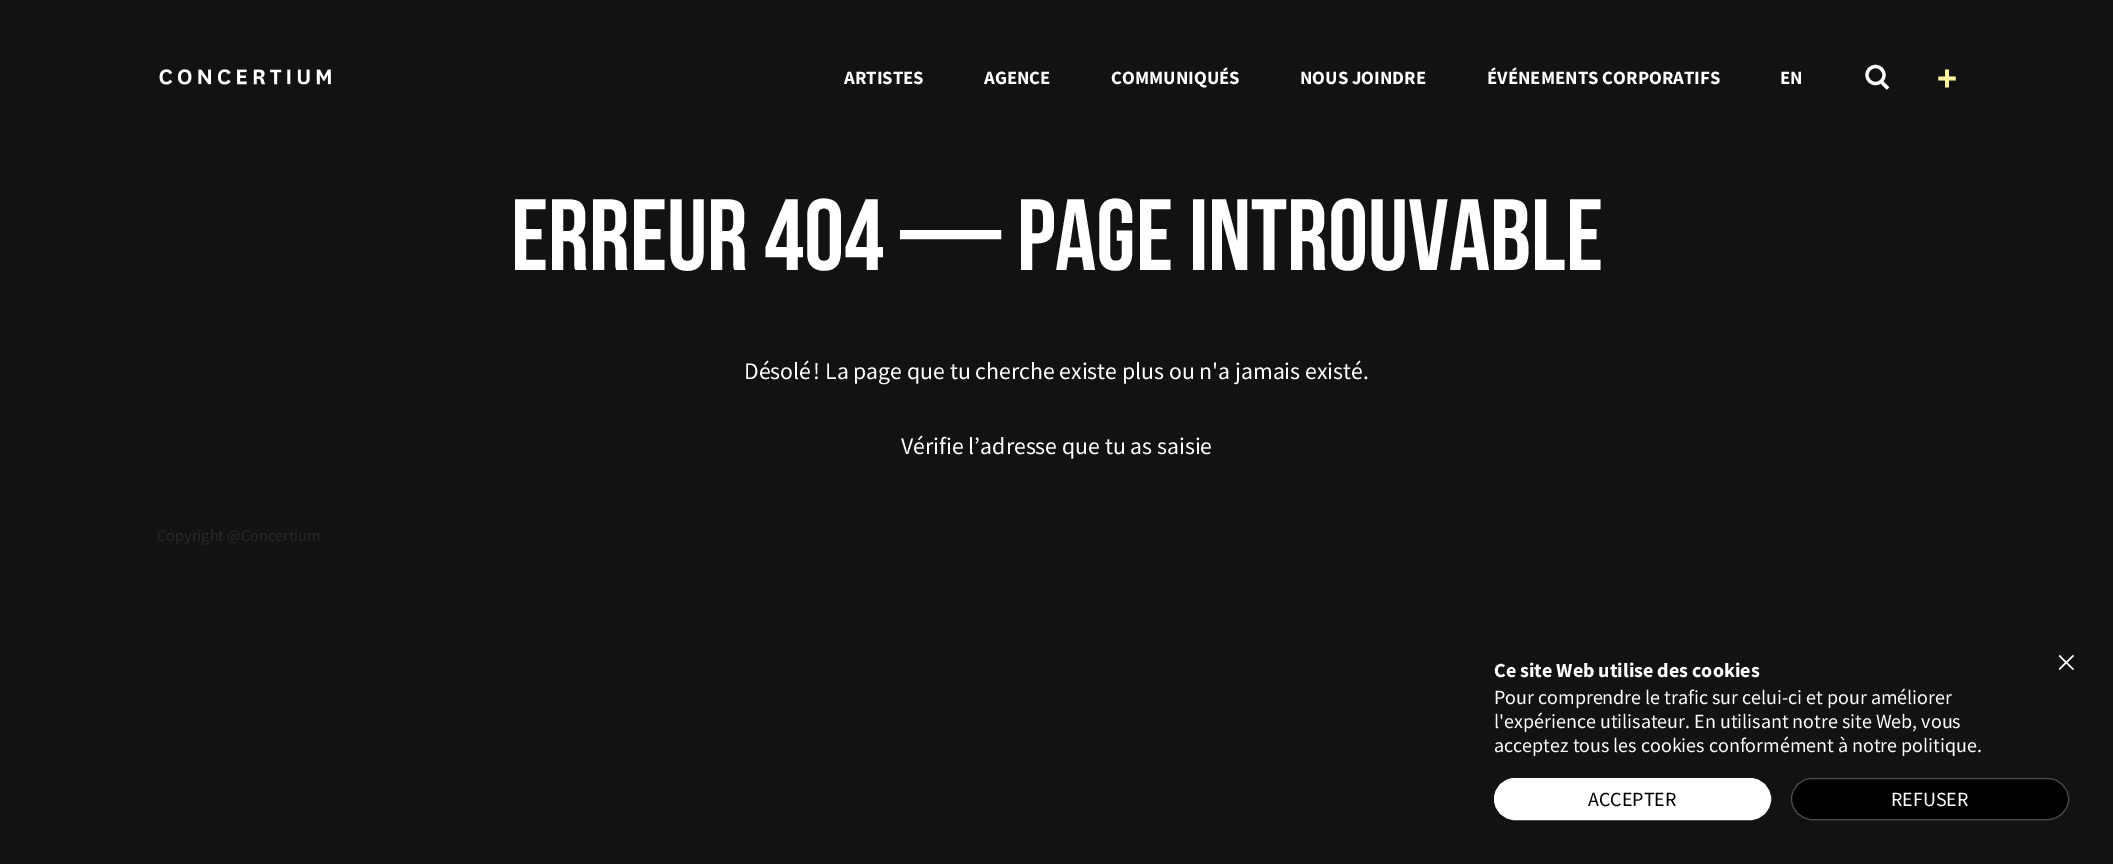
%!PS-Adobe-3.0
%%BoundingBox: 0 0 2113 864
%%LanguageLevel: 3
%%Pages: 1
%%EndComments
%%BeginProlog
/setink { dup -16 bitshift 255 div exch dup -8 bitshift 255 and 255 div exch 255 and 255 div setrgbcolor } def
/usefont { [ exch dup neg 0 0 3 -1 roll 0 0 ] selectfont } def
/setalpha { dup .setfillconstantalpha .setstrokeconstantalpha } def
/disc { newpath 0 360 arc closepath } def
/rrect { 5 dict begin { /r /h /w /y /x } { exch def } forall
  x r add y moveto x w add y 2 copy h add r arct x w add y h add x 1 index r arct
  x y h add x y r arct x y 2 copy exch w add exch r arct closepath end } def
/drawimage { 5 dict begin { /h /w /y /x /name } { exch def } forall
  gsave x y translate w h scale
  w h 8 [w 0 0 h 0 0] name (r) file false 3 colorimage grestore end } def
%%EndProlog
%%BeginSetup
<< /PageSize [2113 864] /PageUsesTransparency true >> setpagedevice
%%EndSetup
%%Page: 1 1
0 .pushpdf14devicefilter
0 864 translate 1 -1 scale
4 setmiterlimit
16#121212 setink
0 0 2113 864 rectfill
(img1.raw) 159 69 172 16 drawimage
/SourceSansPro-Bold 18.75 usefont
16#FFFFFF setink
[
    [(ARTISTES) 844 84]
    [(AGENCE) 984 84]
    [(COMMUNIQUÉS) 1111 84]
    [(NOUS JOINDRE) 1300 84]
    [(ÉVÉNEMENTS CORPORATIFS) 1487 84]
    [(EN) 1780 84]
] { aload pop moveto show } forall
3.2 setlinewidth
1875.5 75 8.5 disc stroke
1881 81.5 moveto 1888 88.5 lineto stroke
/SourceSansPro-Bold 38 usefont
16#FEF49D setink
1937 91 moveto (+) show
/BebasNeue-Bold 101.25 usefont
16#FFFFFF setink
511 270 moveto (ERREUR 404 — PAGE INTROUVABLE) show
/SourceSansPro-Regular 23.75 usefont
744 379 moveto (Désolé ! La page que tu cherche existe plus ou n'a jamais existé.) show
901 454 moveto (Vérifie l’adresse que tu as saisie) show
/SourceSansPro-Regular 16.25 usefont
16#282828 setink
157 541 moveto (Copyright @Concertium) show
/SourceSansPro-Bold 20 usefont
16#FFFFFF setink
1494 677 moveto (Ce site Web utilise des cookies) show
/SourceSansPro-Regular 20 usefont
[
    [(Pour comprendre le trafic sur celui-ci et pour améliorer) 1494 704]
    [(l'expérience utilisateur. En utilisant notre site Web, vous) 1494 728]
    [(acceptez tous les cookies conformément à notre politique.) 1494 752]
] { aload pop moveto show } forall
gsave
2059 655 15 15 rectclip
1.4 setlinewidth
2059 669.5 moveto 2073.5 655.5 lineto 2073.5 669.5 moveto 2059 655.5 lineto stroke
grestore
1494.5 778.5 276 41 20.5 rrect gsave fill grestore
1 setlinewidth
stroke
16#000000 setink
1588 806 moveto (ACCEPTER) show
1791 778 278 42 21 rrect fill
0.3 setalpha
16#FFFFFF setink
1791.5 778.5 277 41 20.5 rrect stroke
1 setalpha
1891 806 moveto (REFUSER) show
.poppdf14devicefilter showpage
%%EOF
